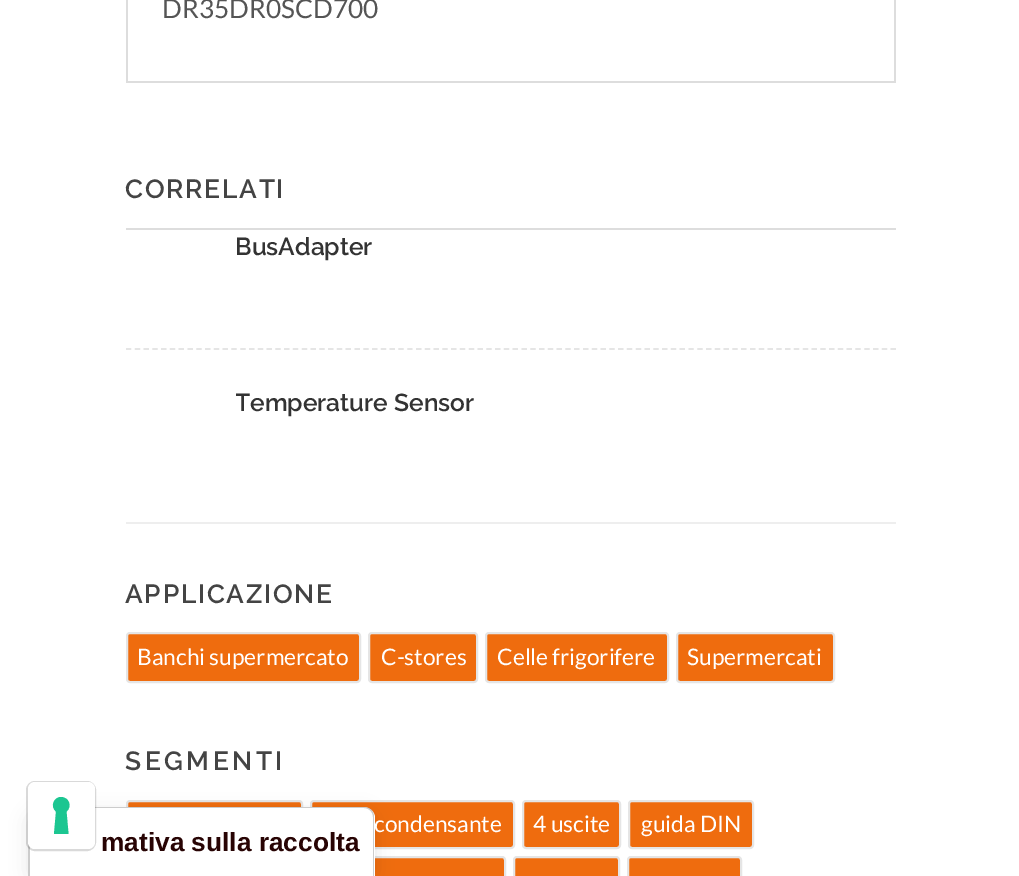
%!PS-Adobe-3.0
%%BoundingBox: 0 0 1019 876
%%LanguageLevel: 3
%%Pages: 1
%%EndComments
%%BeginProlog
/setink { dup -16 bitshift 255 div exch dup -8 bitshift 255 and 255 div exch 255 and 255 div setrgbcolor } def
/usefont { [ exch dup neg 0 0 3 -1 roll 0 0 ] selectfont } def
/setalpha { dup .setfillconstantalpha .setstrokeconstantalpha } def
/rrect { 5 dict begin { /r /h /w /y /x } { exch def } forall
  x r add y moveto x w add y 2 copy h add r arct x w add y h add x 1 index r arct
  x y h add x y r arct x y 2 copy exch w add exch r arct closepath end } def
/softshadow { 12 dict begin { /a /b /q /h /w /y /x } { exch def } forall gsave /was 0 def
  9 -2 -9 { dup b mul 4 div /e exch def 1 sub .425 mul 2.718 exch exp 1 add a .99 .min exch div /now exch def
    1 1 now sub 1 was sub div sub setalpha /was now def
    w h .min e 2 mul add 0 gt { x e sub y e sub w e 2 mul add h e 2 mul add
      q e add b .6 mul add w h .min 2 div e add .min 0 .max rrect fill } if } for grestore end } def
%%EndProlog
%%BeginSetup
<< /PageSize [1019 876] /PageUsesTransparency true >> setpagedevice
%%EndSetup
%%Page: 1 1
0 .pushpdf14devicefilter
0 876 translate 1 -1 scale
4 setmiterlimit
16#FFFFFF setink
0 0 1019 876 rectfill
16#EF6C0E setink
127 801 175 47 3 rrect gsave fill grestore
16#E5E5E5 setink
2 setlinewidth
stroke
16#EF6C0E setink
311 801 203 47 3 rrect gsave fill grestore
16#E5E5E5 setink
stroke
16#EF6C0E setink
309 857 196 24 3 rrect gsave fill grestore
16#E5E5E5 setink
stroke
16#000000 setink
28 812 347 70 11 9 0.1 softshadow
16#FFFFFF setink
39 807 moveto 364 807 lineto 370 807 375 812 375 818 curveto 375 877 lineto 28 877 lineto 28 818 lineto 28 812 33 807 39 807 curveto closepath fill
0.2 setalpha
16#000000 setink
38 807 moveto 364 807 lineto 370 807 374 811 374 817 curveto 374 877 lineto 28 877 lineto 28 817 lineto 28 811 33 807 38 807 curveto closepath 38 808 moveto 364 808 lineto 369 808 373 812 373 817 curveto 373 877 lineto 30 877 lineto 30 817 lineto 30 812 34 808 38 808 curveto closepath eofill
0.15 setalpha
27 782 68 68 8 rrect stroke
1 setalpha
16#FFFFFF setink
28 782 67 67 7 rrect fill
16#1CC691 setink
61 797 moveto 69 797 72.5 806.5 66.5 811.5 curveto 68.5 834 lineto 54 834 lineto 56 811.5 lineto 50 806.5 53.5 797 61 797 curveto closepath eofill
[
    [894 0 2 82 16#DDDDDD]
    [126 81 770 2 16#DDDDDD]
    [126 0 2 82 16#DDDDDD]
] { aload pop setink rectfill } forall
/Lato-Regular 26.25 usefont
16#555555 setink
162 18 moveto (DR35DR0SCD700) show
/Raleway-SemiBold 26.25 usefont
16#444444 setink
125 198 moveto 1.75 0 (CORRELATI) ashow
16#DDDDDD setink
126 228 770 2 rectfill
/Raleway-SemiBold 24.5 usefont
16#333333 setink
235 255 moveto (BusAdapter) show
16#E5E5E5 setink
1.8 setlinewidth
[5.25 3.54] 0 setdash
126 349 moveto 896 349 lineto stroke
gsave
236 385 660 54 rectclip
16#333333 setink
235 411 moveto (Temperature Sensor) show
grestore
16#EEEEEE setink
126 522 770 2 rectfill
/Raleway-SemiBold 26.25 usefont
16#444444 setink
125 603 moveto 1.75 0 (APPLICAZIONE) ashow
16#EF6C0E setink
127 633 233 49 3 rrect gsave fill grestore
16#E5E5E5 setink
2 setlinewidth
[] 0 setdash
stroke
/Lato-Regular 22.75 usefont
16#FFFFFF setink
137 665 moveto (Banchi supermercato) show
16#EF6C0E setink
369 633 108 49 3 rrect gsave fill grestore
16#E5E5E5 setink
stroke
16#FFFFFF setink
381 665 moveto (C-stores) show
16#EF6C0E setink
486 633 182 49 3 rrect gsave fill grestore
16#E5E5E5 setink
stroke
16#FFFFFF setink
497 665 moveto (Celle frigorifere) show
16#EF6C0E setink
677 633 157 49 3 rrect gsave fill grestore
16#E5E5E5 setink
stroke
16#FFFFFF setink
687 665 moveto (Supermercati) show
/Raleway-SemiBold 26.25 usefont
16#444444 setink
125 770 moveto 3.5 0 (SEGMENTI) ashow
/Lato-Regular 22.75 usefont
16#FFFFFF setink
374 832 moveto (condensante) show
16#EF6C0E setink
523 801 97 47 3 rrect gsave fill grestore
16#E5E5E5 setink
stroke
16#FFFFFF setink
533 832 moveto (4 uscite) show
16#EF6C0E setink
629 801 124 47 3 rrect gsave fill grestore
16#E5E5E5 setink
stroke
16#FFFFFF setink
641 832 moveto (guida DIN) show
16#EF6C0E setink
514 857 105 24 3 rrect gsave fill grestore
16#E5E5E5 setink
stroke
16#EF6C0E setink
628 857 113 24 3 rrect gsave fill grestore
16#E5E5E5 setink
stroke
/LiberationSans-Bold 26.25 usefont
16#280404 setink
101 851 moveto (mativa sulla raccolta) show
.poppdf14devicefilter showpage
%%EOF
